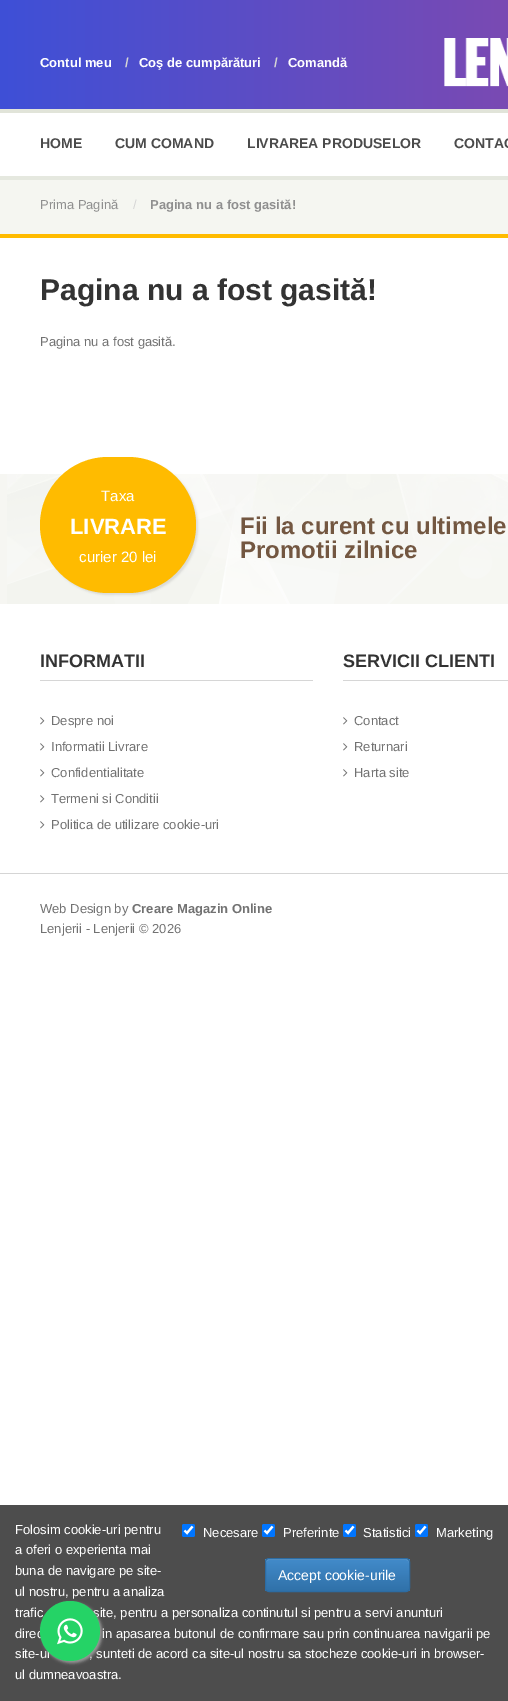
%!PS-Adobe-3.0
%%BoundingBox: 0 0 508 1701
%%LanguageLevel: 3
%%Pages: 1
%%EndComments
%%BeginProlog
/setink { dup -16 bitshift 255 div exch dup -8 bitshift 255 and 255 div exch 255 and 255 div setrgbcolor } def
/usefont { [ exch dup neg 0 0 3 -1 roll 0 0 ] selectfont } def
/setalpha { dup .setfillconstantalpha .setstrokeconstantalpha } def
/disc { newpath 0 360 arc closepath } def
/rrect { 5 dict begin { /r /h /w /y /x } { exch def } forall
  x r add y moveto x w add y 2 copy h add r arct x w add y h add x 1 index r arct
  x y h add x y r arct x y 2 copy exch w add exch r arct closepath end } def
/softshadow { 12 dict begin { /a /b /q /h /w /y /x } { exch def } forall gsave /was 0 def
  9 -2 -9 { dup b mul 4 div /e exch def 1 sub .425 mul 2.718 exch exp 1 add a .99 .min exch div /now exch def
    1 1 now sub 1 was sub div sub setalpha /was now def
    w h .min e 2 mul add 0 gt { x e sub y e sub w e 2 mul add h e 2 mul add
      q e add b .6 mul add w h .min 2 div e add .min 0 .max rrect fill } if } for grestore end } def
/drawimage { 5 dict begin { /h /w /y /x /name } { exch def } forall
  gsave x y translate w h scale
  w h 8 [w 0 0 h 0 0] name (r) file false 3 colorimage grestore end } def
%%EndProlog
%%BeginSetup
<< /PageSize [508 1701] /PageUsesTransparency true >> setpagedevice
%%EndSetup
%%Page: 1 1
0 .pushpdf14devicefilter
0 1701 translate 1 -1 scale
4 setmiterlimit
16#FFFFFF setink
0 0 508 1701 rectfill
gsave 0 0 moveto 508 0 lineto 508 109 lineto 0 109 lineto closepath clip newpath
<< /ShadingType 2 /ColorSpace /DeviceRGB /Coords [0 0 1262 0] /Extend [true true] /Function << /FunctionType 2 /Domain [0 1] /C0 [0.243 0.314 0.843] /C1 [0.831 0.251 0.49] /N 1 >> >> shfill grestore
/LiberationSans-Bold 13 usefont
40 67 moveto (Contul meu) show
16#D5D5D5 setink
125 67 moveto (/) show
16#FFFFFF setink
139 67 moveto (Coş de cumpărături) show
16#D5D5D5 setink
274 67 moveto (/) show
16#FFFFFF setink
288 67 moveto (Comandă) show
(img1.raw) 444 38 64 49 drawimage
16#E1E4D9 setink
0 109 508 4 rectfill
16#E5E8DF setink
0 176 508 4 rectfill
/LiberationSans-Bold 14 usefont
16#4B4B4B setink
[
    [(HOME) 40 148]
    [(CUM COMAND) 115 148]
    [(LIVRAREA PRODUSELOR) 247 148]
    [(CONTAC) 454 148]
] { aload pop moveto show } forall
16#F5F6F1 setink
0 180 508 54 rectfill
16#FFBB00 setink
0 234 508 4 rectfill
/LiberationSans-Regular 13 usefont
16#8F8F8F setink
40 209 moveto (Prima Pagină) show
16#D5D5D5 setink
133 209 moveto (/) show
/LiberationSans-Bold 13 usefont
16#8F8F8F setink
150 209 moveto (Pagina nu a fost gasită!) show
/LiberationSans-Bold 30 usefont
16#333333 setink
40 300 moveto (Pagina nu a fost gasită!) show
/LiberationSans-Regular 13 usefont
16#727272 setink
40 346 moveto (Pagina nu a fost gasită.) show
16#F6F6F2 setink
0 474 7 130 rectfill
(img2.raw) 7 474 501 130 drawimage
16#000000 setink
42 459 156 136 68 1 0.1 softshadow
16#FFBB00 setink
40 457 156 136 68 rrect fill
/LiberationSans-Regular 15 usefont
16#FFFFFF setink
101 501 moveto (Taxa) show
/LiberationSans-Bold 22 usefont
70 534 moveto (LIVRARE) show
/LiberationSans-Regular 15 usefont
79 562 moveto (curier 20 lei) show
/LiberationSans-Bold 24 usefont
16#735741 setink
240 534 moveto (Fii la curent cu ultimele) show
240 558 moveto (Promotii zilnice) show
16#D6D6D6 setink
40 680 273 1 rectfill
/LiberationSans-Bold 18 usefont
16#333333 setink
40 667 moveto (INFORMATII) show
(img3.raw) 40 717 5 8 drawimage
/LiberationSans-Regular 13 usefont
16#727272 setink
51 725 moveto (Despre noi) show
(img3.raw) 40 743 5 8 drawimage
51 751 moveto (Informatii Livrare) show
(img3.raw) 40 769 5 8 drawimage
51 777 moveto (Confidentialitate) show
(img3.raw) 40 795 5 8 drawimage
51 803 moveto (Termeni si Conditii) show
(img3.raw) 40 821 5 8 drawimage
51 829 moveto (Politica de utilizare cookie-uri) show
16#D6D6D6 setink
343 680 165 1 rectfill
/LiberationSans-Bold 18 usefont
16#333333 setink
343 667 moveto (SERVICII CLIENTI) show
(img3.raw) 343 717 5 8 drawimage
/LiberationSans-Regular 13 usefont
16#727272 setink
354 725 moveto (Contact) show
(img3.raw) 343 743 5 8 drawimage
354 751 moveto (Returnari) show
(img3.raw) 343 769 5 8 drawimage
354 777 moveto (Harta site) show
16#D5D5D5 setink
0 873 508 1 rectfill
16#727272 setink
40 913 moveto (Web Design by) show
/LiberationSans-Bold 13 usefont
132 913 moveto (Creare Magazin Online) show
/LiberationSans-Regular 13 usefont
40 933 moveto (Lenjerii - Lenjerii © 2026) show
16#4D4D4D setink
0 1505 508 196 rectfill
16#FFFFFF setink
15 1534 moveto (Folosim cookie-uri pentru) show
16#0075FF setink
182 1524 13 13 2 rrect fill
16#FFFFFF setink
2.1 setlinewidth
184.5 1530.5 moveto 187 1533 lineto 192.5 1526.5 lineto stroke
203 1537 moveto (Necesare) show
16#0075FF setink
262 1524 13 13 2 rrect fill
16#FFFFFF setink
264.5 1530.5 moveto 267 1533 lineto 272.5 1526.5 lineto stroke
283 1537 moveto (Preferinte) show
16#0075FF setink
343 1524 13 13 2 rrect fill
16#FFFFFF setink
345.5 1530.5 moveto 348 1533 lineto 353.5 1526.5 lineto stroke
363 1537 moveto (Statistici) show
16#0075FF setink
415 1524 13 13 2 rrect fill
16#FFFFFF setink
417.5 1530.5 moveto 420 1533 lineto 425.5 1526.5 lineto stroke
436 1537 moveto (Marketing) show
gsave
265 1558 145 34 4 rrect clip newpath
gsave 265 1559 moveto 410 1559 lineto 410 1591 lineto 265 1591 lineto closepath clip newpath
<< /ShadingType 2 /ColorSpace /DeviceRGB /Coords [338 1559 338 1591] /Extend [true true] /Function << /FunctionType 2 /Domain [0 1] /C0 [0.259 0.545 0.792] /C1 [0.188 0.443 0.663] /N 1 >> >> shfill grestore
grestore
16#5E9CD1 setink
269 1560 moveto 406 1560 lineto 408 1560 409 1561 409 1563 curveto 409 1562 lineto 409 1560 408 1559 406 1559 curveto 269 1559 lineto 267 1559 266 1560 266 1562 curveto 266 1563 lineto 266 1561 267 1560 269 1560 curveto closepath fill
16#2D6CA2 setink
1 setlinewidth
265.5 1558.5 144 33 3.5 rrect stroke
/LiberationSans-Regular 14 usefont
16#FFFFFF setink
278 1580 moveto (Accept cookie-urile) show
/LiberationSans-Regular 13 usefont
[
    [(a oferi o experienta mai) 15 1554]
    [(buna de navigare pe site-) 15 1575]
    [(ul nostru, pentru a analiza) 15 1596]
    [(trafic) 15 1617]
    [(site, pentru a personaliza continutul si pentru a servi anunturi) 93 1617]
    [(direc) 15 1638]
    [(in apasarea butonul de confirmare sau prin continuarea navigarii pe) 102 1638]
    [(site-ul) 15 1658]
    [(, sunteti de acord ca site-ul nostru sa stocheze cookie-uri in browser-) 89 1658]
    [(ul dumneavoastra.) 15 1679]
] { aload pop moveto show } forall
16#999999 setink
42 1603 60 60 30 1.5 1 softshadow
16#25D366 setink
70 1631 30 disc fill
(img4.raw) 57 1618 26 27 drawimage
.poppdf14devicefilter showpage
%%EOF
